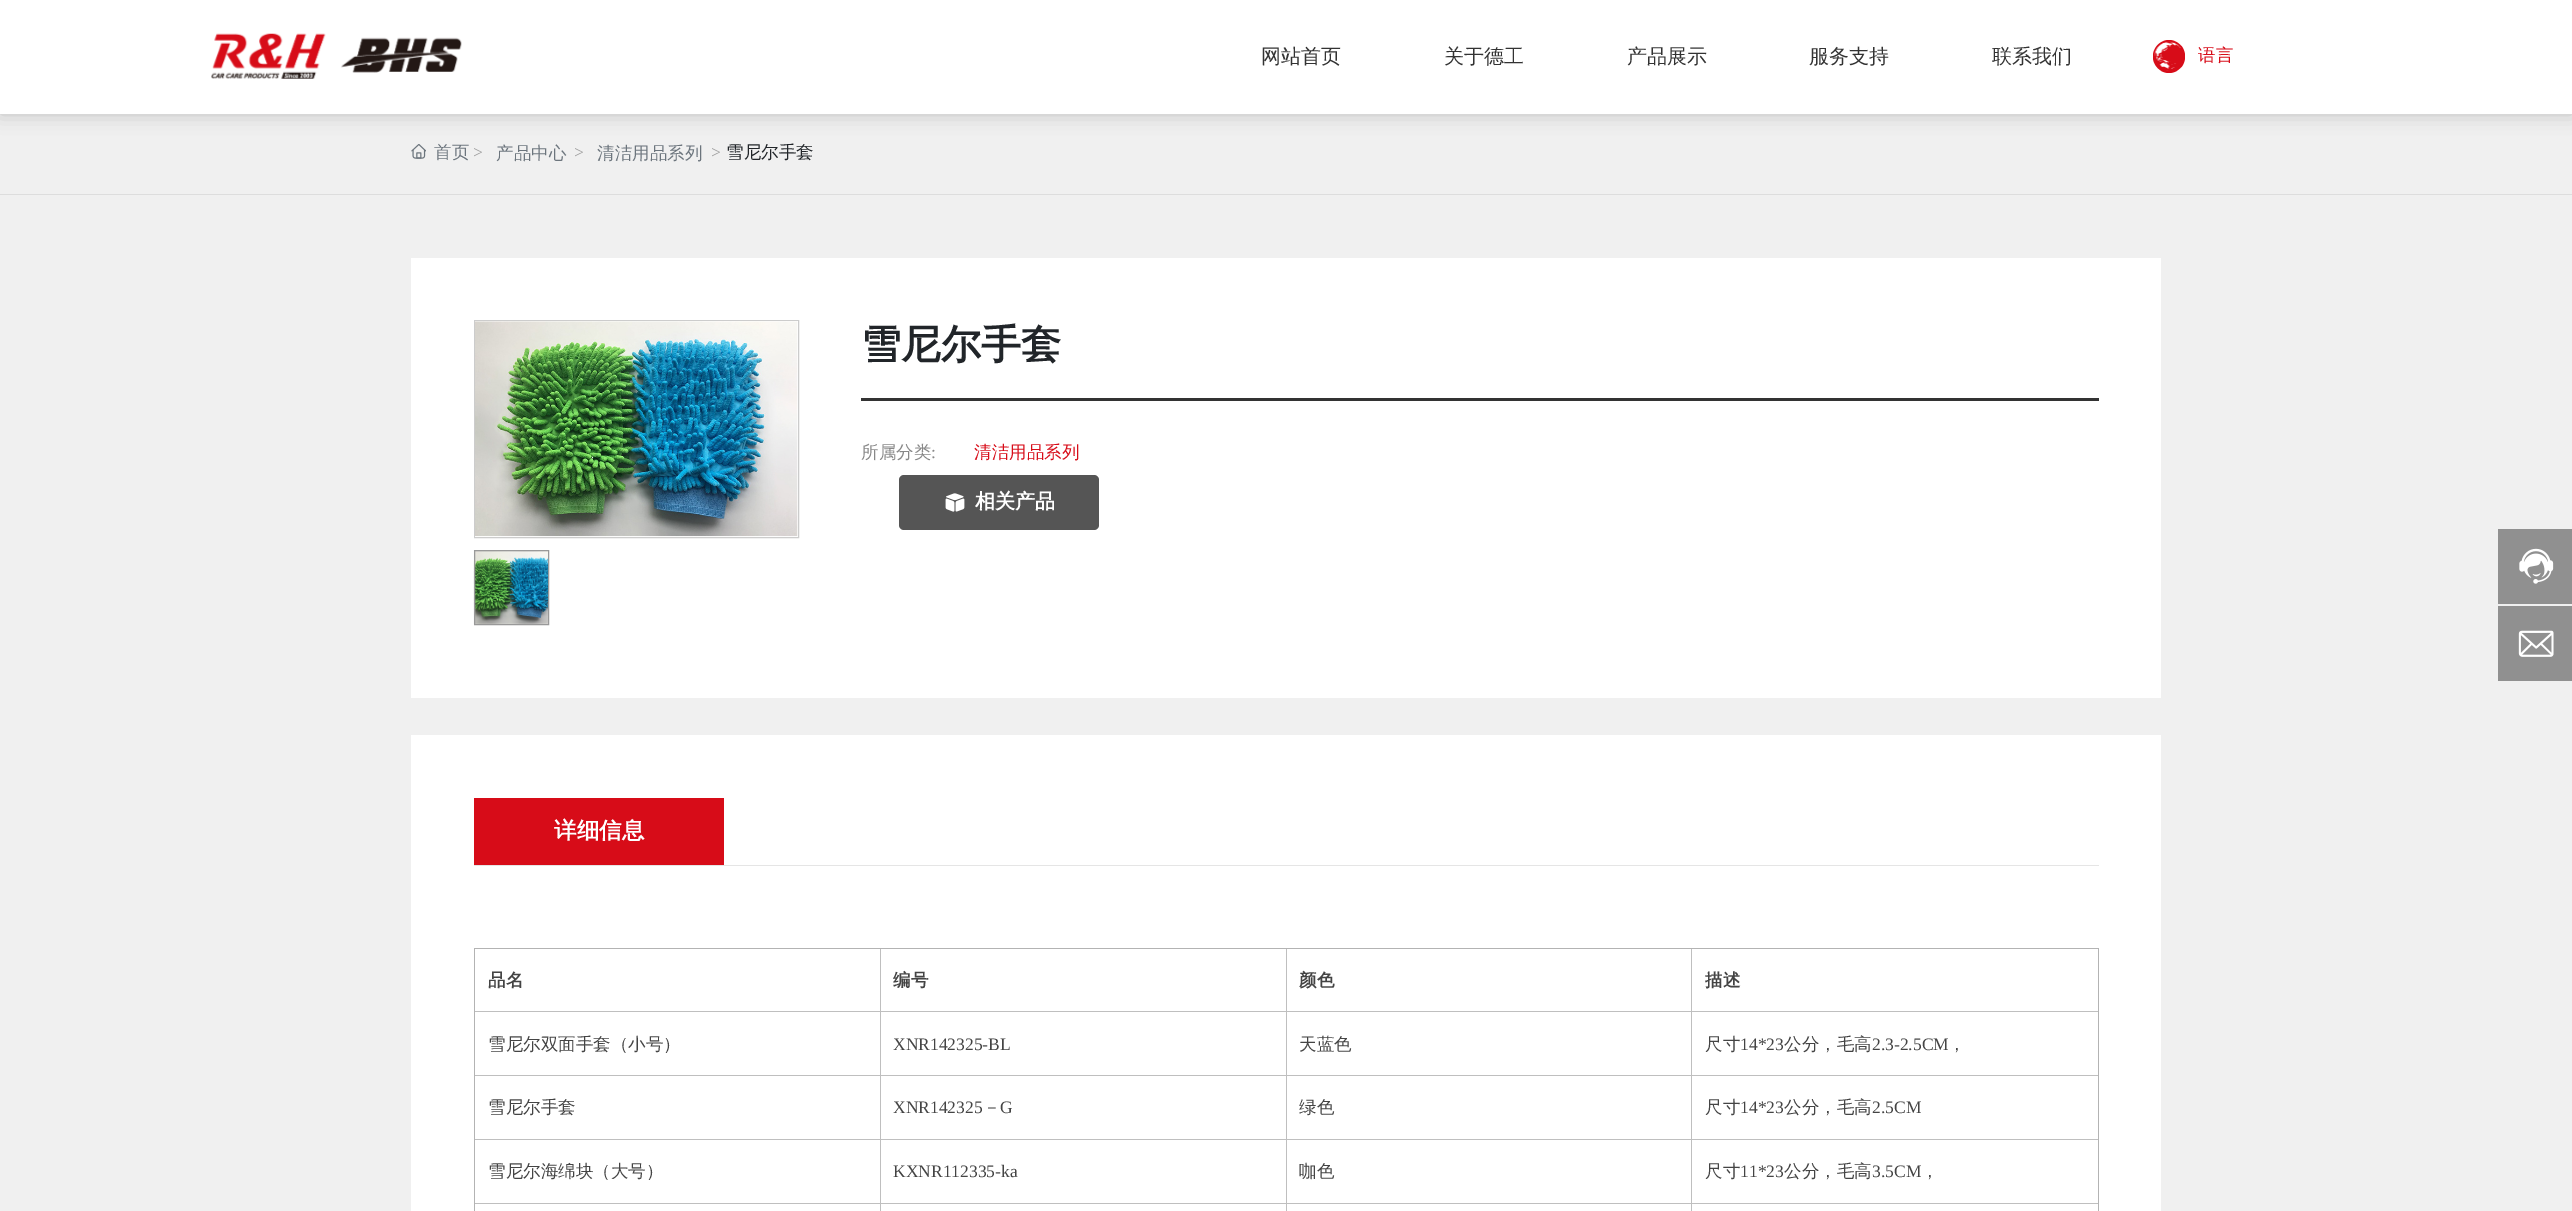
%!PS-Adobe-3.0
%%BoundingBox: 0 0 2572 1211
%%LanguageLevel: 3
%%Pages: 1
%%EndComments
%%BeginProlog
/setink { dup -16 bitshift 255 div exch dup -8 bitshift 255 and 255 div exch 255 and 255 div setrgbcolor } def
/usefont { [ exch dup neg 0 0 3 -1 roll 0 0 ] selectfont } def
/setalpha { dup .setfillconstantalpha .setstrokeconstantalpha } def
/rrect { 5 dict begin { /r /h /w /y /x } { exch def } forall
  x r add y moveto x w add y 2 copy h add r arct x w add y h add x 1 index r arct
  x y h add x y r arct x y 2 copy exch w add exch r arct closepath end } def
/softshadow { 12 dict begin { /a /b /q /h /w /y /x } { exch def } forall gsave /was 0 def
  9 -2 -9 { dup b mul 4 div /e exch def 1 sub .425 mul 2.718 exch exp 1 add a .99 .min exch div /now exch def
    1 1 now sub 1 was sub div sub setalpha /was now def
    w h .min e 2 mul add 0 gt { x e sub y e sub w e 2 mul add h e 2 mul add
      q e add b .6 mul add w h .min 2 div e add .min 0 .max rrect fill } if } for grestore end } def
/drawimage { 5 dict begin { /h /w /y /x /name } { exch def } forall
  gsave x y translate w h scale
  w h 8 [w 0 0 h 0 0] name (r) file false 3 colorimage grestore end } def
%%EndProlog
%%BeginSetup
<< /PageSize [2572 1211] /PageUsesTransparency true >> setpagedevice
%%EndSetup
%%Page: 1 1
0 .pushpdf14devicefilter
0 1211 translate 1 -1 scale
4 setmiterlimit
16#F0F0F0 setink
0 0 2572 1211 rectfill
16#000000 setink
0 0 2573 114 0 9.5 0.2 softshadow
16#FFFFFF setink
0 0 2572 114 rectfill
(img1.raw) 211 33 251 46 drawimage
/WenQuanYiZenHei-Medium 20 usefont
16#333333 setink
[
    [(网站首页) 1261 63]
    [(关于德工) 1444 63]
    [(产品展示) 1627 63]
    [(服务支持) 1809 63]
    [(联系我们) 1992 63]
] { aload pop moveto show } forall
16#D70C18 setink
2153 40 32 33 16 rrect fill
(img2.raw) 2154 41 27 30 drawimage
/WenQuanYiZenHei-Medium 17.5 usefont
2198 61 moveto (语言) show
16#DDDDDD setink
0 194 2572 1 rectfill
(img3.raw) 411 144 15 15 drawimage
16#6C757D setink
434 158 moveto (首页) show
/LiberationSerif-Regular 17.5 usefont
16#999999 setink
473 158 moveto (>) show
/WenQuanYiZenHei-Medium 17.5 usefont
16#6C757D setink
496 159 moveto (产品中心) show
/LiberationSerif-Regular 17.5 usefont
16#999999 setink
574 158 moveto (>) show
/WenQuanYiZenHei-Medium 17.5 usefont
16#6C757D setink
597 159 moveto (清洁用品系列) show
/LiberationSerif-Regular 17.5 usefont
16#999999 setink
711 158 moveto (>) show
/WenQuanYiZenHei-Medium 17.5 usefont
16#212529 setink
726 158 moveto (雪尼尔手套) show
16#FFFFFF setink
411 258 1750 440 rectfill
16#CCCCCC setink
474.5 320.5 324 217 rectstroke
(img4.raw) 475 321 323 216 drawimage
(img5.raw) 473 550 75 75 drawimage
16#999999 setink
474.5 550.5 74 74 rectstroke
16#333333 setink
861 398 1238 3 rectfill
/WenQuanYiZenHei-Bold 40 usefont
16#212529 setink
861 358 moveto (雪尼尔手套) show
/WenQuanYiZenHei-Medium 17.5 usefont
16#888888 setink
861 458 moveto (所属分类) show
/LiberationSerif-Regular 17.5 usefont
931 458 moveto (:) show
/WenQuanYiZenHei-Medium 17.5 usefont
16#D70C18 setink
974 458 moveto (清洁用品系列) show
16#555555 setink
899 475 200 55 5 rrect fill
(img6.raw) 945 493 20 19 drawimage
/WenQuanYiZenHei-Bold 20 usefont
16#FFFFFF setink
975 508 moveto (相关产品) show
[
    [411 735 1750 476 16#FFFFFF]
    [474 865 1625 1 16#E5E5E5]
    [474 798 250 67 16#D70C18]
] { aload pop setink rectfill } forall
/WenQuanYiZenHei-Bold 22.5 usefont
16#FFFFFF setink
554 838 moveto (详细信息) show
[
    [474 948 1625 1 16#B3B3B3]
    [2098 948 1 263 16#B3B3B3]
    [474 948 1 263 16#B3B3B3]
] { aload pop setink rectfill } forall
/WenQuanYiZenHei-Bold 17.5 usefont
16#444444 setink
488 986 moveto (品名) show
[
    [1691 1011 407 1 16#BFBFBF]
    [1691 1075 407 1 16#BFBFBF]
    [1691 1139 407 1 16#BFBFBF]
    [1691 1203 407 1 16#BFBFBF]
    [1691 1203 1 8 16#BFBFBF]
    [1286 1203 407 1 16#BFBFBF]
    [1691 1139 1 65 16#BFBFBF]
    [1286 1139 407 1 16#BFBFBF]
    [1691 1075 1 65 16#BFBFBF]
    [1286 1075 407 1 16#BFBFBF]
    [1691 1011 1 65 16#BFBFBF]
    [1286 1011 407 1 16#BFBFBF]
    [1286 1203 1 8 16#BFBFBF]
    [880 1203 408 1 16#BFBFBF]
    [1286 1139 1 65 16#BFBFBF]
    [880 1139 408 1 16#BFBFBF]
    [1286 1075 1 65 16#BFBFBF]
    [880 1075 408 1 16#BFBFBF]
    [1286 1011 1 65 16#BFBFBF]
    [880 1011 408 1 16#BFBFBF]
    [880 1203 1 8 16#BFBFBF]
    [475 1203 406 1 16#BFBFBF]
    [880 1139 1 65 16#BFBFBF]
    [475 1139 406 1 16#BFBFBF]
    [880 1075 1 65 16#BFBFBF]
    [475 1075 406 1 16#BFBFBF]
    [880 1011 1 65 16#BFBFBF]
    [475 1011 406 1 16#BFBFBF]
    [880 949 1 64 16#BFBFBF]
] { aload pop setink rectfill } forall
16#444444 setink
893 986 moveto (编号) show
16#BFBFBF setink
1286 949 1 64 rectfill
16#444444 setink
1299 986 moveto (颜色) show
16#BFBFBF setink
1691 949 1 64 rectfill
16#444444 setink
1705 986 moveto (描述) show
/WenQuanYiZenHei-Medium 17.5 usefont
488 1050 moveto (雪尼尔双面手套（小号）) show
/LiberationSerif-Regular 17.5 usefont
893 1050 moveto (XNR142325-BL) show
/WenQuanYiZenHei-Medium 17.5 usefont
1299 1050 moveto (天蓝色) show
1705 1050 moveto (尺寸) show
/LiberationSerif-Regular 17.5 usefont
1740 1050 moveto (14*23) show
/WenQuanYiZenHei-Medium 17.5 usefont
1784 1050 moveto (公分，毛高) show
/LiberationSerif-Regular 17.5 usefont
1872 1050 moveto (2.3-2.5CM) show
/WenQuanYiZenHei-Medium 17.5 usefont
1948 1050 moveto (，) show
488 1113 moveto (雪尼尔手套) show
/LiberationSerif-Regular 17.5 usefont
893 1113 moveto (XNR142325) show
/WenQuanYiZenHei-Medium 17.5 usefont
983 1113 moveto (－) show
/LiberationSerif-Regular 17.5 usefont
1000 1113 moveto (G) show
/WenQuanYiZenHei-Medium 17.5 usefont
1299 1113 moveto (绿色) show
1705 1113 moveto (尺寸) show
/LiberationSerif-Regular 17.5 usefont
1740 1113 moveto (14*23) show
/WenQuanYiZenHei-Medium 17.5 usefont
1784 1113 moveto (公分，毛高) show
/LiberationSerif-Regular 17.5 usefont
1872 1113 moveto (2.5CM) show
/WenQuanYiZenHei-Medium 17.5 usefont
488 1177 moveto (雪尼尔海绵块（大号）) show
/LiberationSerif-Regular 17.5 usefont
893 1177 moveto (KXNR112335-ka) show
/WenQuanYiZenHei-Medium 17.5 usefont
1299 1177 moveto (咖色) show
1705 1177 moveto (尺寸) show
/LiberationSerif-Regular 17.5 usefont
1740 1177 moveto (11*23) show
/WenQuanYiZenHei-Medium 17.5 usefont
1784 1177 moveto (公分，毛高) show
/LiberationSerif-Regular 17.5 usefont
1872 1177 moveto (3.5CM) show
/WenQuanYiZenHei-Medium 17.5 usefont
1921 1177 moveto (，) show
16#909090 setink
2498 529 74 75 rectfill
(img7.raw) 2519 548 35 36 drawimage
2498 606 74 75 rectfill
(img8.raw) 2518 630 36 27 drawimage
.poppdf14devicefilter showpage
%%EOF
